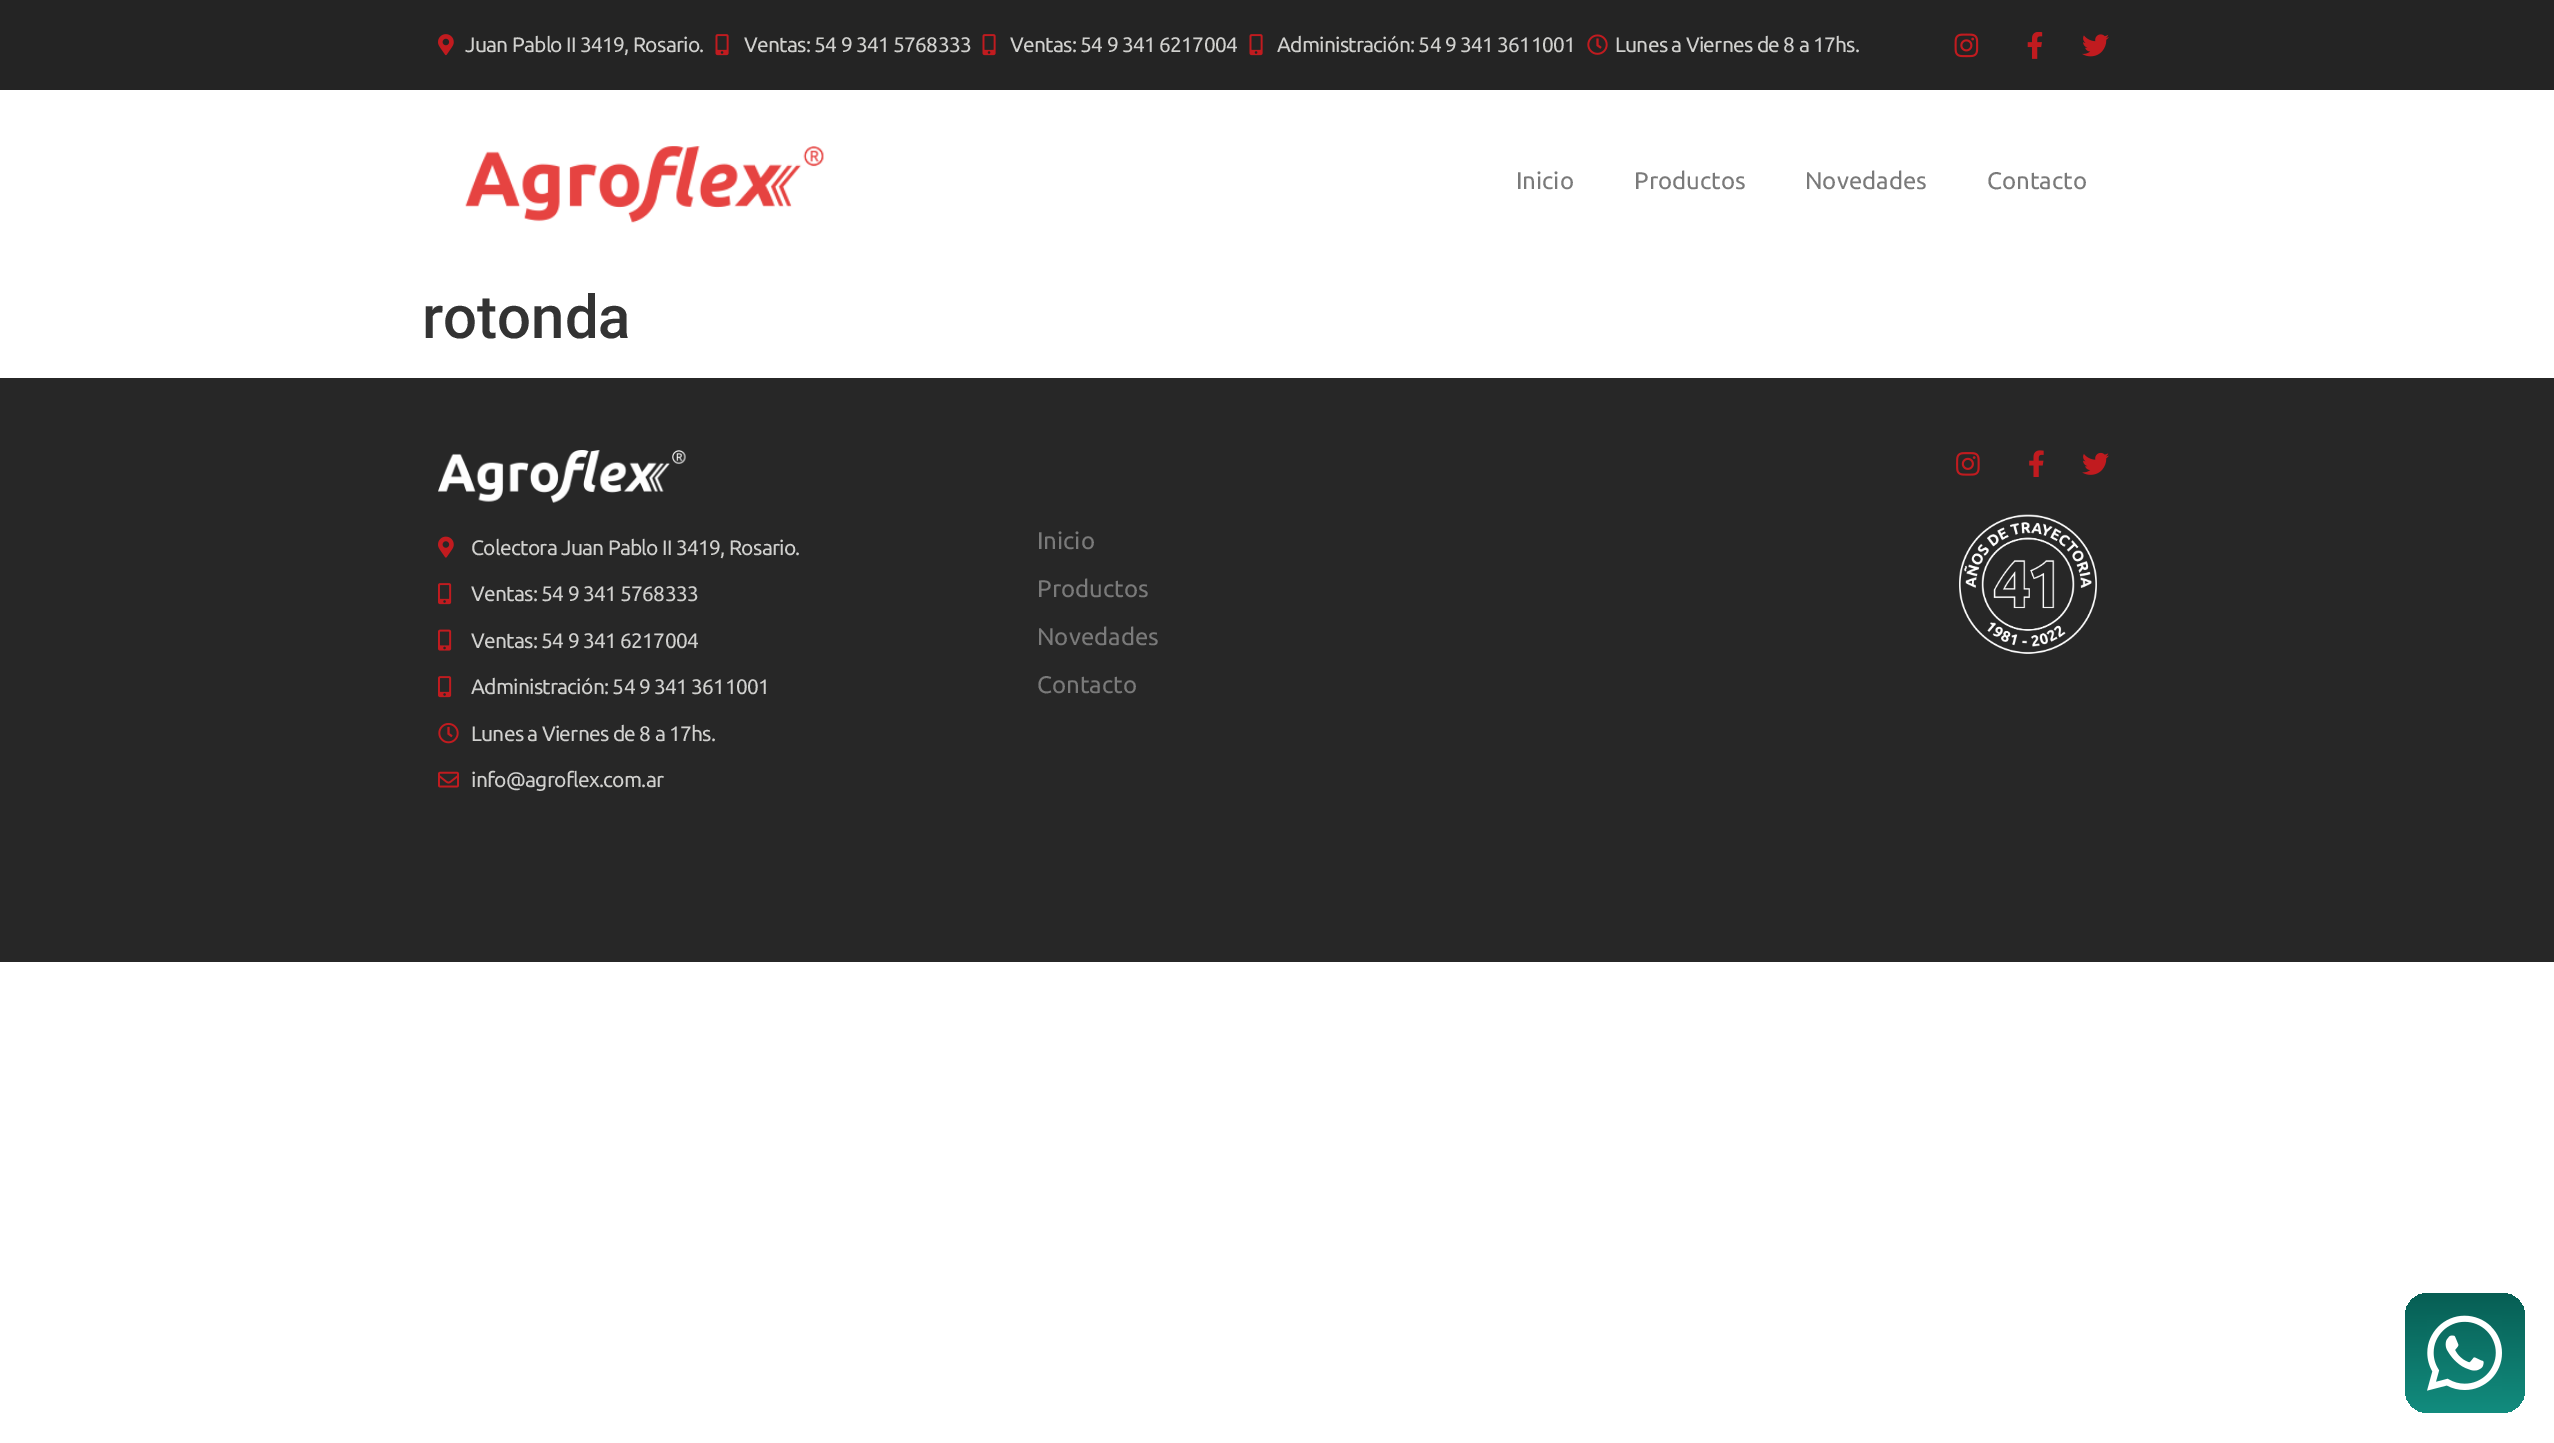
%!PS-Adobe-3.0
%%BoundingBox: 0 0 2554 1443
%%LanguageLevel: 3
%%Pages: 1
%%EndComments
%%BeginProlog
/setink { dup -16 bitshift 255 div exch dup -8 bitshift 255 and 255 div exch 255 and 255 div setrgbcolor } def
/usefont { [ exch dup neg 0 0 3 -1 roll 0 0 ] selectfont } def
/rrect { 5 dict begin { /r /h /w /y /x } { exch def } forall
  x r add y moveto x w add y 2 copy h add r arct x w add y h add x 1 index r arct
  x y h add x y r arct x y 2 copy exch w add exch r arct closepath end } def
/drawimage { 5 dict begin { /h /w /y /x /name } { exch def } forall
  gsave x y translate w h scale
  w h 8 [w 0 0 h 0 0] name (r) file false 3 colorimage grestore end } def
%%EndProlog
%%BeginSetup
<< /PageSize [2554 1443] >> setpagedevice
%%EndSetup
%%Page: 1 1
0 1443 translate 1 -1 scale
4 setmiterlimit
16#FFFFFF setink
0 0 2554 1443 rectfill
16#242424 setink
0 0 2554 90 rectfill
(img1.raw) 438 34 16 22 drawimage
/Ubuntu-Regular 21 usefont
16#D0D0CE setink
465 52 moveto -0.75 0 (Juan Pablo II 3419, Rosario.) ashow
(img2.raw) 715 34 14 22 drawimage
744 52 moveto -0.75 0 (Ventas: 54 9 341 5768333) ashow
(img2.raw) 982 34 14 22 drawimage
1010 52 moveto -0.75 0 (Ventas: 54 9 341 6217004) ashow
(img2.raw) 1249 34 14 22 drawimage
1277 52 moveto -0.75 0 (Administración: 54 9 341 3611001) ashow
(img3.raw) 1587 34 21 21 drawimage
1615 52 moveto -0.75 0 (Lunes a Viernes de 8 a 17hs.) ashow
(img4.raw) 1954 33 25 25 drawimage
(img5.raw) 2027 32 16 27 drawimage
(img6.raw) 2082 34 27 23 drawimage
(img7.raw) 465 146 359 77 drawimage
/Ubuntu-Regular 24 usefont
16#7A7A7A setink
[
    [(Inicio) 1516 189]
    [(Productos) 1634 189]
    [(Novedades) 1805 189]
    [(Contacto) 1987 189]
] { aload pop moveto show } forall
/Roboto-Medium 60 usefont
16#333333 setink
422 338 moveto (rotonda) show
16#272727 setink
0 378 2554 584 rectfill
(img8.raw) 438 450 248 53 drawimage
(img9.raw) 438 536 16 22 drawimage
/Ubuntu-Regular 21 usefont
16#D0D0CE setink
471 555 moveto -0.75 0 (Colectora Juan Pablo II 3419, Rosario.) ashow
(img10.raw) 438 583 14 22 drawimage
471 601 moveto -0.75 0 (Ventas: 54 9 341 5768333) ashow
(img11.raw) 438 629 14 22 drawimage
471 648 moveto -0.75 0 (Ventas: 54 9 341 6217004) ashow
(img10.raw) 438 676 14 22 drawimage
471 694 moveto -0.75 0 (Administración: 54 9 341 3611001) ashow
(img12.raw) 438 723 21 21 drawimage
471 741 moveto -0.75 0 (Lunes a Viernes de 8 a 17hs.) ashow
(img13.raw) 438 771 21 17 drawimage
471 787 moveto -0.75 0 (info@agroflex.com.ar) ashow
/Ubuntu-Regular 24 usefont
16#7A7A7A setink
[
    [(Inicio) 1037 549]
    [(Productos) 1037 597]
    [(Novedades) 1037 645]
    [(Contacto) 1037 693]
] { aload pop moveto show } forall
(img14.raw) 1956 452 24 24 drawimage
(img15.raw) 2029 450 15 27 drawimage
(img16.raw) 2082 452 27 23 drawimage
(img17.raw) 1959 514 138 140 drawimage
gsave 2405 1293 120 120 23 rrect clip newpath
<< /ShadingType 2 /ColorSpace /DeviceRGB /Coords [2465 1293 2465 1413] /Extend [true true] /Function << /FunctionType 2 /Domain [0 1] /C0 [0.027 0.369 0.329] /C1 [0.071 0.549 0.494] /N 1 >> >> shfill grestore
(img18.raw) 2427 1315 75 76 drawimage
showpage
%%EOF
